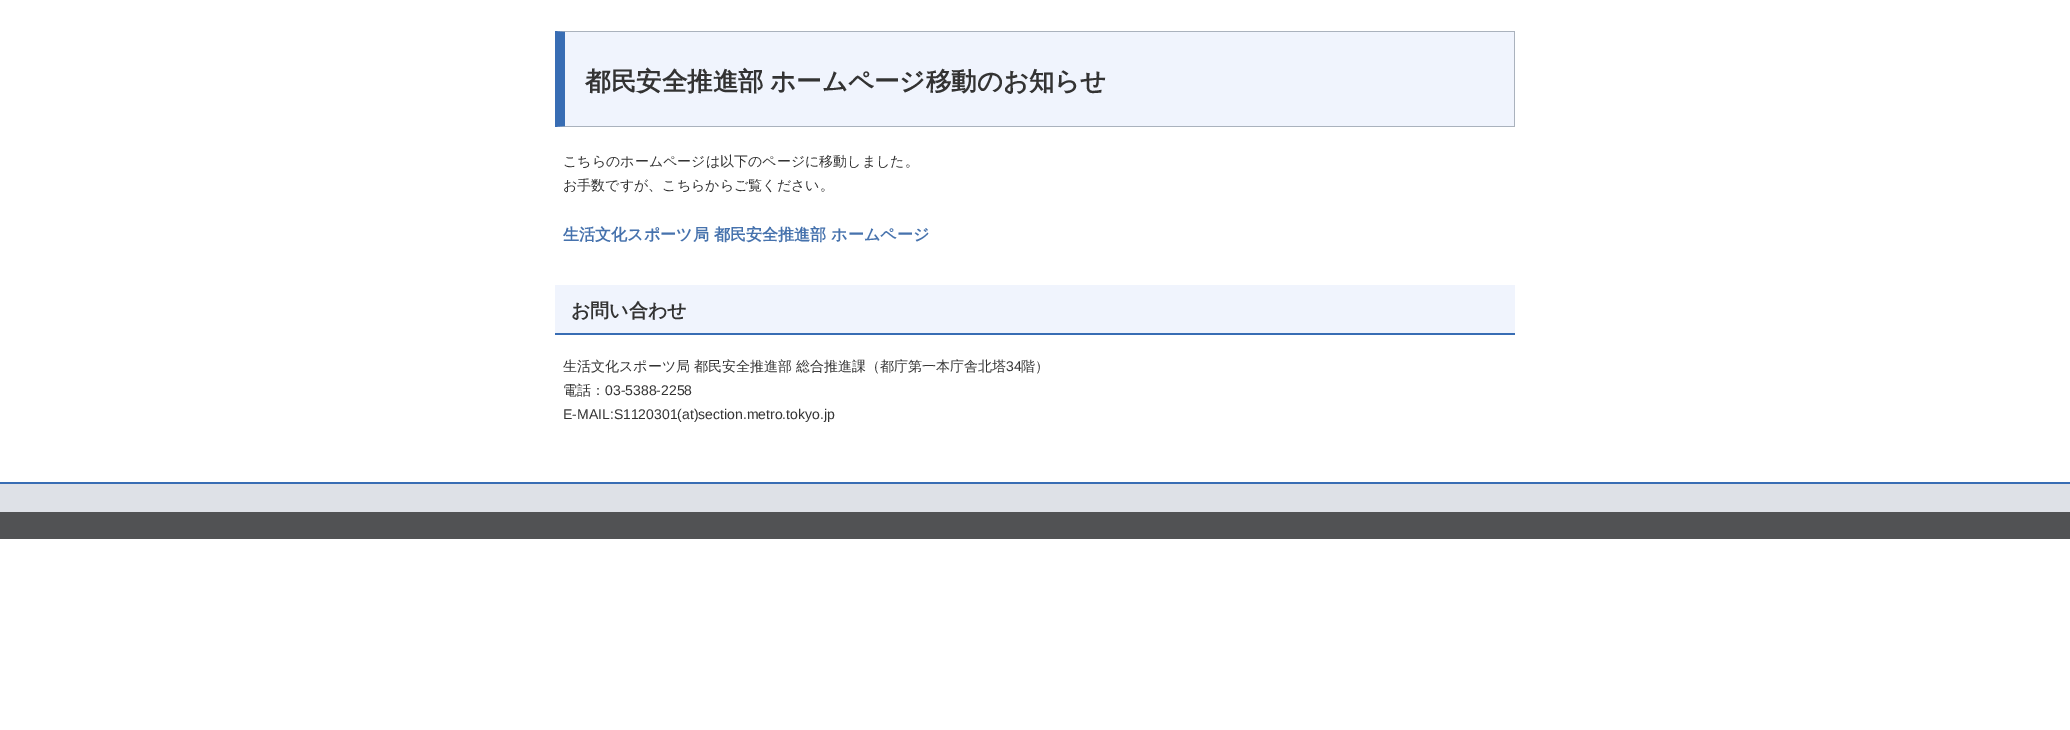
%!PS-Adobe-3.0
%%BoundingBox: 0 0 2070 730
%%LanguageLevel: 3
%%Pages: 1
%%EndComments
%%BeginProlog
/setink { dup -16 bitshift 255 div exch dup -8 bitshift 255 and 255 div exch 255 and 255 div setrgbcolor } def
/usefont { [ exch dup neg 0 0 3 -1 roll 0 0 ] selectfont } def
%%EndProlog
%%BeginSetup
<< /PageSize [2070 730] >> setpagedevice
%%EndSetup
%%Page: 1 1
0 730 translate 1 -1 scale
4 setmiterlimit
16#FFFFFF setink
0 0 2070 730 rectfill
16#F0F4FD setink
555 31 959 96 rectfill
16#AAB2BD setink
555 31 moveto 1515 31 lineto 1514 32 lineto 565 32 lineto closepath fill
1514 31 1 96 rectfill
1515 127 moveto 555 127 lineto 565 126 lineto 1514 126 lineto closepath fill
16#386DB4 setink
555 127 moveto 555 31 lineto 565 32 lineto 565 126 lineto closepath fill
/WenQuanYiZenHei-Bold 25.5 usefont
16#333333 setink
585 90 moveto -1 0 32 (都民安全推進部 ホームページ移動のお知らせ) widthshow
/WenQuanYiZenHei-Medium 14 usefont
563 166 moveto (こちらのホームページは以下のページに移動しました。) show
563 190 moveto (お手数ですが、こちらからご覧ください。) show
/WenQuanYiZenHei-Bold 16.1 usefont
16#4672AD setink
563 240 moveto (生活文化スポーツ局 都民安全推進部 ホームページ) show
16#F0F4FD setink
555 285 960 48 rectfill
16#386DB4 setink
555 333 960 2 rectfill
/WenQuanYiZenHei-Bold 19 usefont
16#333333 setink
571 317 moveto (お問い合わせ) show
/WenQuanYiZenHei-Medium 14 usefont
563 371 moveto (生活文化スポーツ局 都民安全推進部 総合推進課（都庁第一本庁舎北塔) show
/LiberationSans-Regular 14 usefont
1006 371 moveto (34) show
/WenQuanYiZenHei-Medium 14 usefont
1021 371 moveto (階）) show
563 395 moveto (電話：) show
/LiberationSans-Regular 14 usefont
605 395 moveto (03-5388-2258) show
563 419 moveto (E-MAIL:S1120301\(at\)section.metro.tokyo.jp) show
[
    [0 484 2070 28 16#DEE1E7]
    [0 482 2070 2 16#386DB4]
    [0 512 2070 27 16#515254]
] { aload pop setink rectfill } forall
showpage
%%EOF
